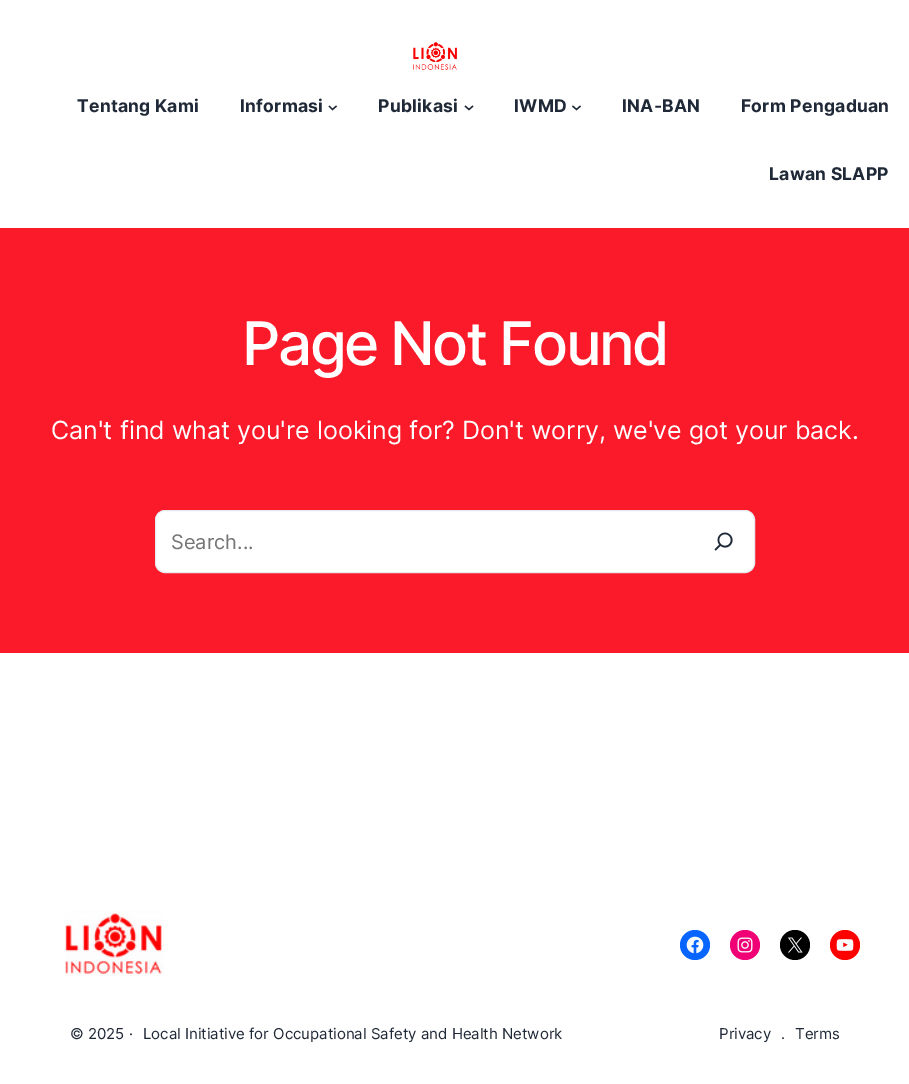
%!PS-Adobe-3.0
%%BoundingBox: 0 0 909 1084
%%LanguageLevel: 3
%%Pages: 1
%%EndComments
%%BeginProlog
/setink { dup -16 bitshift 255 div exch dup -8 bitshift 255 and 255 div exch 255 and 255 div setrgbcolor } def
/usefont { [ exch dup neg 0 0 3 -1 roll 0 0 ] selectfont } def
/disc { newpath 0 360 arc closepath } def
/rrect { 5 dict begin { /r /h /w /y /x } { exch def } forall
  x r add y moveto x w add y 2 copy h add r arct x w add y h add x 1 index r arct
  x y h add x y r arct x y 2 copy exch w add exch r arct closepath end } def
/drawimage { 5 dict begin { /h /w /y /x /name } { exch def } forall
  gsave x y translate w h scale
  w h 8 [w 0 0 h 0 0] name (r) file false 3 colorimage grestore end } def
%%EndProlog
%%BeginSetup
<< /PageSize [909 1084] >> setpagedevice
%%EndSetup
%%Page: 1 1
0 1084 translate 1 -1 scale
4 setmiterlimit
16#FFFFFF setink
0 0 909 1084 rectfill
(img1.raw) 413 42 45 28 drawimage
/Inter-Bold 17.5 usefont
16#1F2937 setink
77 112 moveto 0.25 0 (Tentang Kami) ashow
240 112 moveto 0.25 0 (Informasi) ashow
1.3 setlinewidth
329 106 moveto 332.5 109.5 lineto 336.5 106 lineto stroke
378 112 moveto 0.25 0 (Publikasi) ashow
465 106 moveto 469 109.5 lineto 473 106 lineto stroke
514 112 moveto 0.25 0 (IWMD) ashow
572.5 106 moveto 576.5 109.5 lineto 580.5 106 lineto stroke
622 112 moveto 0.25 0 (INA-BAN) ashow
741 112 moveto 0.25 0 (Form Pengaduan) ashow
769 180 moveto 0.25 0 (Lawan SLAPP) ashow
16#FA1A29 setink
0 228 909 425 rectfill
/Inter-Medium 60 usefont
16#FFFFFF setink
242 365 moveto -2.5 0 (Page Not Found) ashow
/Inter-Regular 25 usefont
51 439 moveto (Can't find what you're looking for? Don't worry, we've got your back.) show
155.5 510.5 599 62 9.5 rrect gsave fill grestore
16#E6E9EF setink
1 setlinewidth
stroke
/Inter-Regular 20 usefont
16#757575 setink
171 549 moveto (Search...) show
(img2.raw) 714 532 19 19 drawimage
(img3.raw) 65 911 99 65 drawimage
16#0866FF setink
695 945 15 disc fill
(img4.raw) 686 936 18 18 drawimage
16#F00075 setink
745 945 15 disc fill
(img5.raw) 737 937 16 16 drawimage
16#000000 setink
795 945 15 disc fill
(img6.raw) 788 937 15 16 drawimage
16#FF0000 setink
845 945 15 disc fill
(img7.raw) 836 939 18 12 drawimage
/Inter-Regular 15 usefont
16#1F2937 setink
[
    [(© 2025 ·) 70 1039]
    [(Local Initiative for Occupational Safety and Health Network) 143 1039]
    [(Privacy) 719 1039]
    [(.) 781 1039]
    [(Terms) 795 1039]
] { aload pop moveto show } forall
showpage
%%EOF
